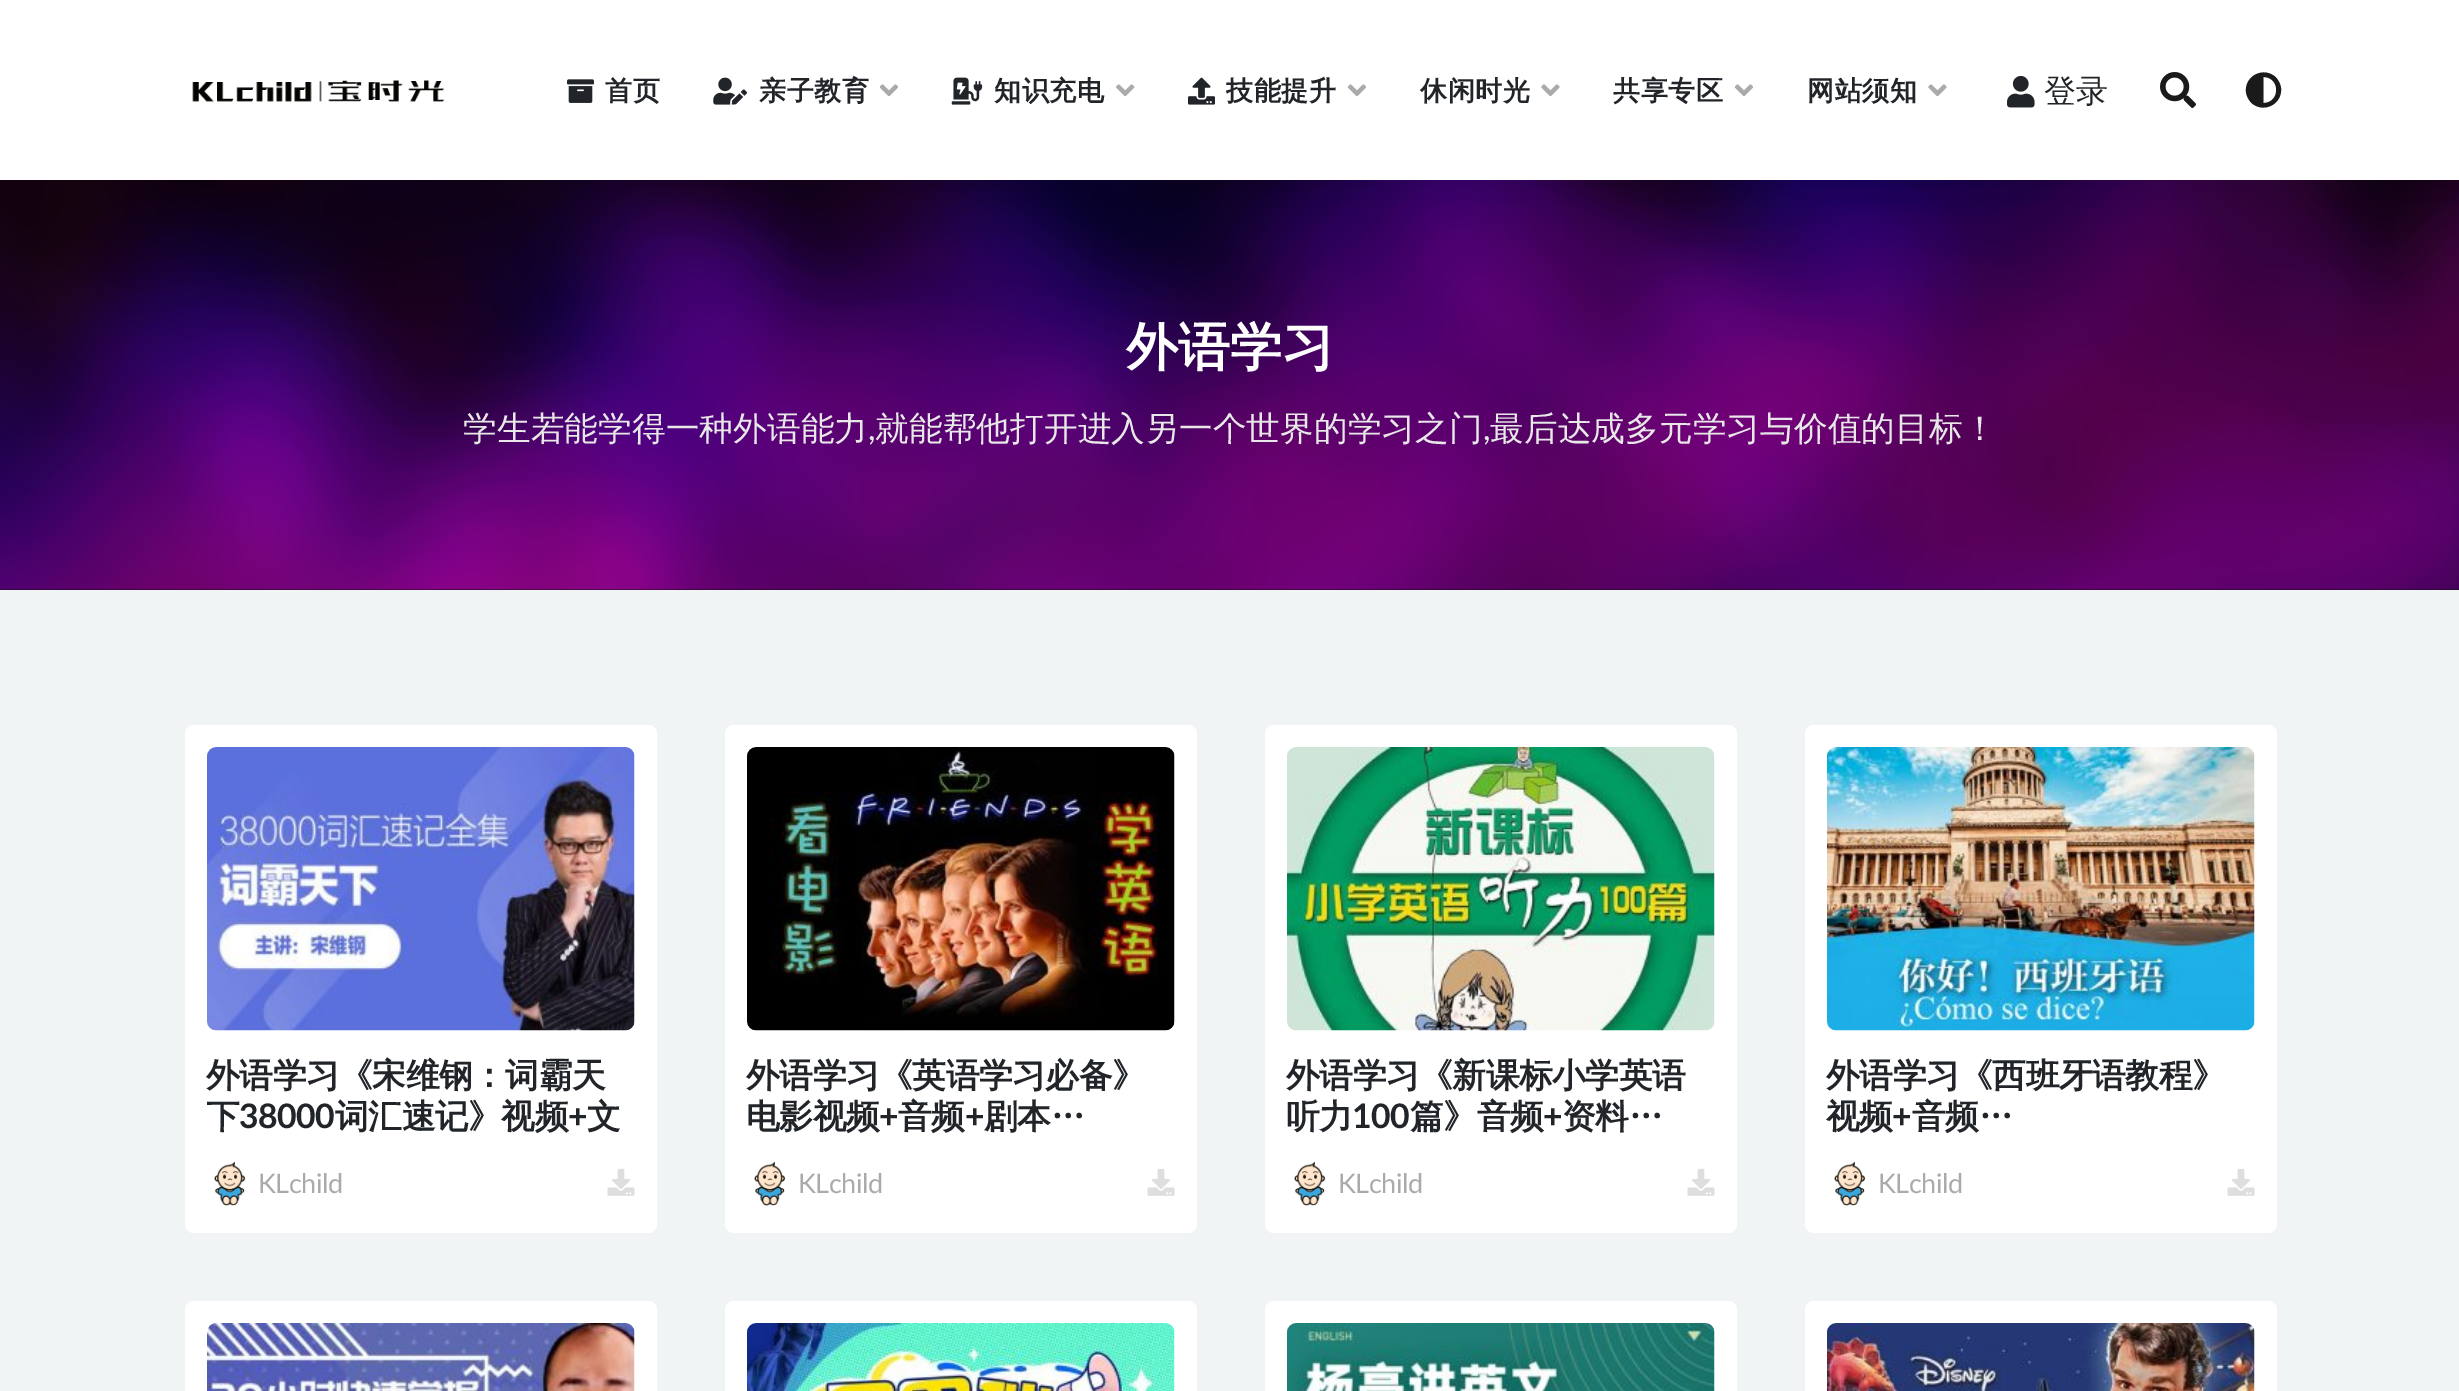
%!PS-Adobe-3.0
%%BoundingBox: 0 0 2459 1391
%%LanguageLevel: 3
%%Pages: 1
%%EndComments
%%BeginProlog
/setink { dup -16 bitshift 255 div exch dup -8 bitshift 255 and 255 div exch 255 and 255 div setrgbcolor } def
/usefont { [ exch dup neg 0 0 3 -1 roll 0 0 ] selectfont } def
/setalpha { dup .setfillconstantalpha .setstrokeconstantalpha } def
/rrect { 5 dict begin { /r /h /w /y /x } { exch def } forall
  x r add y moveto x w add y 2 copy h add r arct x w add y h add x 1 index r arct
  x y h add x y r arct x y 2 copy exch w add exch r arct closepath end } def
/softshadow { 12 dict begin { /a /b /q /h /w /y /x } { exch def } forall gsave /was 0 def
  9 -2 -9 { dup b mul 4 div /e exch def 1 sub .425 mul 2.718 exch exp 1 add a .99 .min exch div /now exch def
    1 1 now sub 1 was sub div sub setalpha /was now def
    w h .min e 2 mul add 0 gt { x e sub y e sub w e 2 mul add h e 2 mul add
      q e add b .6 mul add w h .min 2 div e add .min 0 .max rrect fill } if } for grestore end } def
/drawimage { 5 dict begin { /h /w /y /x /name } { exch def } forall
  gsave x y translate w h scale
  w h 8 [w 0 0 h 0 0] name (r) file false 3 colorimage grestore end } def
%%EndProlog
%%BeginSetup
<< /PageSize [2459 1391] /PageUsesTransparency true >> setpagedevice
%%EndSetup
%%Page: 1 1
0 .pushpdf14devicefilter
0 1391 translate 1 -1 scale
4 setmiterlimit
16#F0F4F5 setink
0 0 2459 1391 rectfill
16#1A1A1A setink
0 180 2459 410 rectfill
(img11.raw) 0 180 2459 410 drawimage
16#000000 setink
0 0 2459 180 0 34 0.07 softshadow
gsave
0 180 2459 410 rectclip
-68 119 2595 531 0 22.5 0.3 softshadow
grestore
16#FFFFFF setink
0 0 2459 180 rectfill
(img1.raw) 192 80 253 22 drawimage
(img2.raw) 567 79 27 24 drawimage
/WenQuanYiZenHei-Bold 27 usefont
16#212529 setink
605 100 moveto 0.5 0 (首页) ashow
(img3.raw) 713 77 34 28 drawimage
759 100 moveto 0.5 0 (亲子教育) ashow
(img4.raw) 879 84 19 13 drawimage
(img5.raw) 951 77 32 28 drawimage
994 100 moveto 0.5 0 (知识充电) ashow
(img6.raw) 1116 84 19 13 drawimage
(img7.raw) 1188 77 27 28 drawimage
1226 100 moveto 0.5 0 (技能提升) ashow
(img4.raw) 1347 84 19 13 drawimage
1420 100 moveto 0.5 0 (休闲时光) ashow
(img8.raw) 1541 84 19 13 drawimage
1613 100 moveto 0.5 0 (共享专区) ashow
(img4.raw) 1734 84 19 13 drawimage
1807 100 moveto 0.5 0 (网站须知) ashow
(img8.raw) 1928 84 19 13 drawimage
(img9.raw) 2007 75 28 33 drawimage
/WenQuanYiZenHei-Medium 32 usefont
2044 102 moveto (登录) show
(img10.raw) 2160 72 36 36 drawimage
16#1A1A1A setink
2251 102.5 moveto 2248.5 99.5 2246.5 96 2246 92 curveto 2244.5 75.5 2264 66 2276 77.5 curveto 2278.5 80.5 2280.5 84 2281 88 curveto 2282.5 104.5 2263 114 2251 102.5 curveto closepath 2263.5 103 moveto 2280.5 103 2280.5 77 2263.5 77 curveto closepath fill
/WenQuanYiZenHei-Bold 52 usefont
16#FFFFFF setink
1126 365 moveto (外语学习) show
/WenQuanYiZenHei-Medium 33.75 usefont
16#E8E8E8 setink
463 440 moveto (学生若能学得一种外语能力) show
/Lato-Regular 33.75 usefont
868 440 moveto (,) show
/WenQuanYiZenHei-Medium 33.75 usefont
875 440 moveto (就能帮他打开进入另一个世界的学习之门) show
/Lato-Regular 33.75 usefont
1483 440 moveto (,) show
/WenQuanYiZenHei-Medium 33.75 usefont
1490 440 moveto (最后达成多元学习与价值的目标！) show
16#FFFFFF setink
185 725 472 508 9 rrect fill
(img12.raw) 207 747 428 284 drawimage
/WenQuanYiZenHei-Bold 33.75 usefont
16#212529 setink
206 1087 moveto -0.5 0 (外语学习《宋维钢：词霸天) ashow
gsave
207 1053 428 81 rectclip
206 1128 moveto -0.5 0 (下) ashow
grestore
/Lato-Bold 33.75 usefont
239 1128 moveto -0.5 0 (38000) ashow
/WenQuanYiZenHei-Bold 33.75 usefont
335 1128 moveto -0.5 0 (词汇速记》视频) ashow
/Lato-Bold 33.75 usefont
568 1128 moveto -0.5 0 (+) ashow
/WenQuanYiZenHei-Bold 33.75 usefont
587 1128 moveto -0.5 0 (文) ashow
(img13.raw) 214 1161 32 45 drawimage
/Lato-Regular 27 usefont
16#AAAAAA setink
258 1193 moveto -0.5 0 (KLchild) ashow
(img14.raw) 607 1168 28 28 drawimage
16#FFFFFF setink
725 725 472 508 9 rrect fill
(img15.raw) 747 747 428 284 drawimage
/WenQuanYiZenHei-Bold 33.75 usefont
16#212529 setink
746 1087 moveto -0.5 0 (外语学习《英语学习必备》) ashow
746 1128 moveto -0.5 0 (电影视频) ashow
/Lato-Bold 33.75 usefont
879 1128 moveto -0.5 0 (+) ashow
/WenQuanYiZenHei-Bold 33.75 usefont
898 1128 moveto -0.5 0 (音频) ashow
/Lato-Bold 33.75 usefont
965 1128 moveto -0.5 0 (+) ashow
/WenQuanYiZenHei-Bold 33.75 usefont
984 1128 moveto -0.5 0 (剧本…) ashow
(img16.raw) 754 1161 32 45 drawimage
/Lato-Regular 27 usefont
16#AAAAAA setink
798 1193 moveto -0.5 0 (KLchild) ashow
(img14.raw) 1147 1168 28 28 drawimage
16#FFFFFF setink
1265 725 472 508 9 rrect fill
(img17.raw) 1287 747 428 284 drawimage
/WenQuanYiZenHei-Bold 33.75 usefont
16#212529 setink
1286 1087 moveto -0.5 0 (外语学习《新课标小学英语) ashow
1286 1128 moveto -0.5 0 (听力) ashow
/Lato-Bold 33.75 usefont
1352 1128 moveto -0.5 0 (100) ashow
/WenQuanYiZenHei-Bold 33.75 usefont
1410 1128 moveto -0.5 0 (篇》音频) ashow
/Lato-Bold 33.75 usefont
1543 1128 moveto -0.5 0 (+) ashow
/WenQuanYiZenHei-Bold 33.75 usefont
1562 1128 moveto -0.5 0 (资料…) ashow
(img18.raw) 1294 1161 32 45 drawimage
/Lato-Regular 27 usefont
16#AAAAAA setink
1338 1193 moveto -0.5 0 (KLchild) ashow
(img14.raw) 1687 1168 28 28 drawimage
16#FFFFFF setink
1805 725 472 508 9 rrect fill
(img19.raw) 1827 747 428 284 drawimage
/WenQuanYiZenHei-Bold 33.75 usefont
16#212529 setink
1826 1087 moveto -0.5 0 (外语学习《西班牙语教程》) ashow
1826 1128 moveto -0.5 0 (视频) ashow
/Lato-Bold 33.75 usefont
1892 1128 moveto -0.5 0 (+) ashow
/WenQuanYiZenHei-Bold 33.75 usefont
1912 1128 moveto -0.5 0 (音频…) ashow
(img20.raw) 1834 1161 32 45 drawimage
/Lato-Regular 27 usefont
16#AAAAAA setink
1878 1193 moveto -0.5 0 (KLchild) ashow
(img14.raw) 2227 1168 28 28 drawimage
16#FFFFFF setink
185 1301 472 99 9 rrect fill
(img21.raw) 207 1323 428 68 drawimage
725 1301 472 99 9 rrect fill
(img22.raw) 747 1323 428 68 drawimage
1265 1301 472 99 9 rrect fill
(img23.raw) 1287 1323 428 68 drawimage
1805 1301 472 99 9 rrect fill
(img24.raw) 1827 1323 428 68 drawimage
.poppdf14devicefilter showpage
%%EOF
